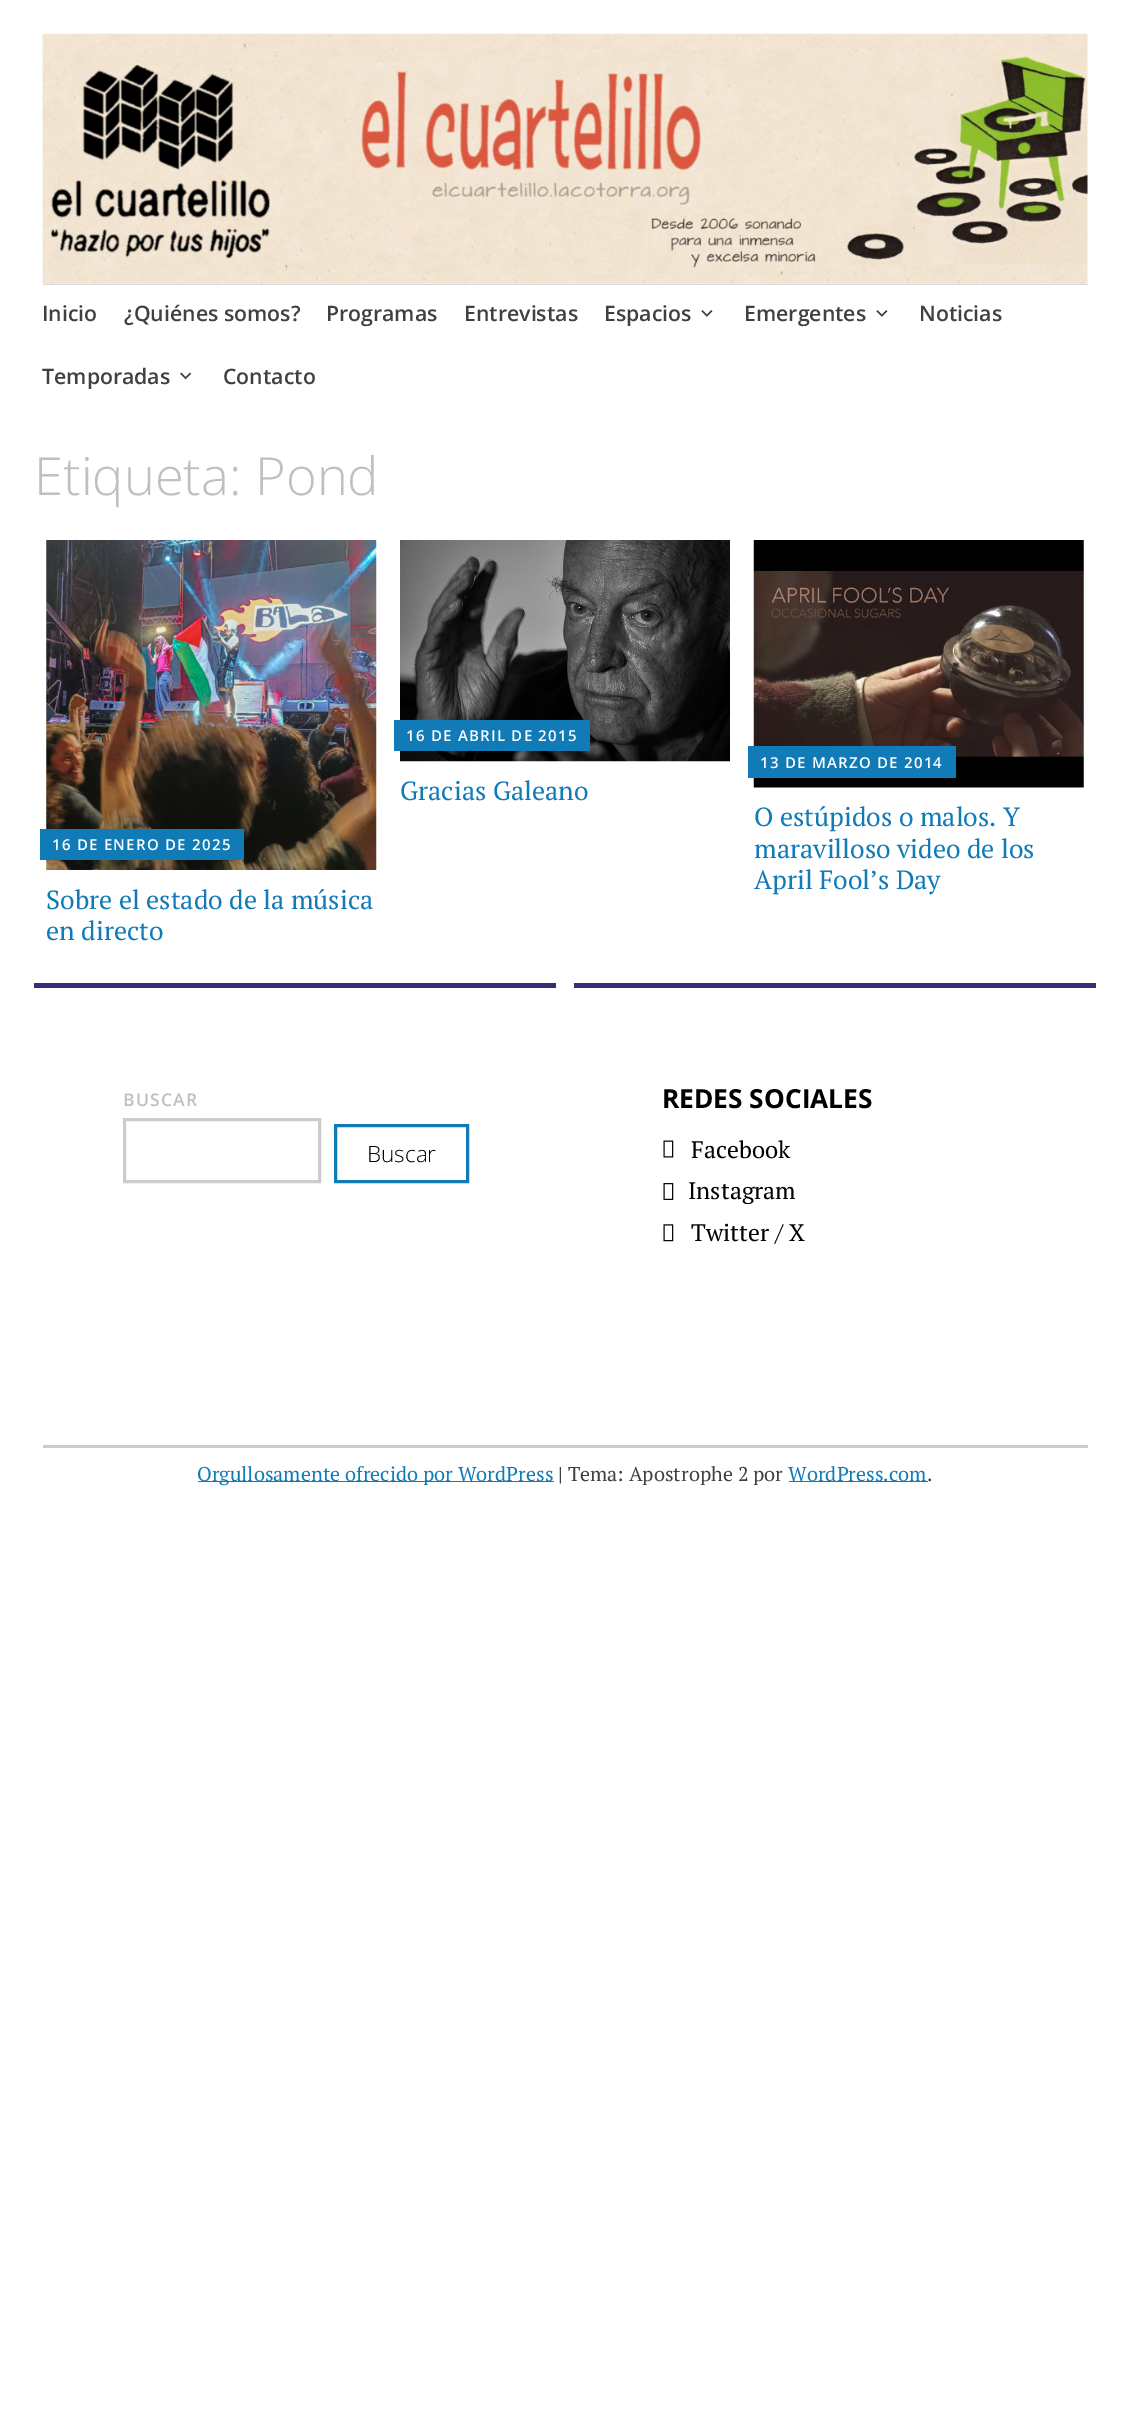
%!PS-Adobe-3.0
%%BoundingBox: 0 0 1130 2436
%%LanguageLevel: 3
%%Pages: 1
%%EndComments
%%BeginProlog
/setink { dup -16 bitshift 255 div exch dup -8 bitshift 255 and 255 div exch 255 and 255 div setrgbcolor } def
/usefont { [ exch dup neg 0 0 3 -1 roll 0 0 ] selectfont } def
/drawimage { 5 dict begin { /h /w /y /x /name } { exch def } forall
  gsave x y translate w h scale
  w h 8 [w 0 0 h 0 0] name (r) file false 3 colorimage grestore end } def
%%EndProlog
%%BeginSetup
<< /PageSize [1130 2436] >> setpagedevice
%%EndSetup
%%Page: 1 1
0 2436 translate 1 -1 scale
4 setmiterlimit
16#FFFFFF setink
0 0 1130 2436 rectfill
(img1.raw) 42 33 1046 251 drawimage
16#D9D9D9 setink
43 284 1045 1 rectfill
/OpenSans-SemiBold 21.25 usefont
16#404040 setink
[
    [(Inicio) 42 321]
    [(¿Quiénes somos?) 124 321]
    [(Programas) 326 321]
    [(Entrevistas) 464 321]
    [(Espacios) 604 321]
] { aload pop moveto show } forall
(img2.raw) 701 310 12 7 drawimage
744 321 moveto (Emergentes) show
(img2.raw) 876 310 12 7 drawimage
919 321 moveto (Noticias) show
42 384 moveto (Temporadas) show
(img3.raw) 180 372 12 8 drawimage
223 384 moveto (Contacto) show
/OpenSans-Light 52.5 usefont
16#C0C0C0 setink
34 495 moveto (Etiqueta: Pond) show
(img4.raw) 46 540 331 330 drawimage
16#117BB8 setink
40 829 204 31 rectfill
/OpenSans-SemiBold 15 usefont
16#FFFFFF setink
52 850 moveto 1.25 0 (16 DE ENERO DE 2025) ashow
/PTSerif-Regular 26.25 usefont
16#117BB8 setink
46 909 moveto (Sobre el estado de la música) show
46 940 moveto (en directo) show
(img5.raw) 400 540 330 222 drawimage
394 720 196 31 rectfill
/OpenSans-SemiBold 15 usefont
16#FFFFFF setink
406 741 moveto 1.25 0 (16 DE ABRIL DE 2015) ashow
/PTSerif-Regular 26.25 usefont
16#117BB8 setink
400 800 moveto (Gracias Galeano) show
(img6.raw) 753 540 331 248 drawimage
748 746 208 32 rectfill
/OpenSans-SemiBold 15 usefont
16#FFFFFF setink
760 768 moveto 1.25 0 (13 DE MARZO DE 2014) ashow
/PTSerif-Regular 26.25 usefont
16#117BB8 setink
[
    [(O estúpidos o malos. Y) 754 826]
    [(maravilloso video de los) 754 858]
    [(April Fool’s Day) 754 889]
] { aload pop moveto show } forall
16#362E77 setink
34 983 522 5 rectfill
/OpenSans-SemiBold 17.5 usefont
16#C0C0C0 setink
123 1106 moveto 1.25 0 (BUSCAR) ashow
16#CCCCCC setink
3 setlinewidth
124.5 1119.5 195 62 rectstroke
16#117BB8 setink
335.5 1125.5 132 56 rectstroke
/OpenSans-Light 22.5 usefont
16#000000 setink
367 1162 moveto (Buscar) show
16#362E77 setink
574 983 522 5 rectfill
/OpenSans-Bold 26.25 usefont
16#000000 setink
662 1108 moveto (REDES SOCIALES) show
(img7.raw) 663 1140 11 18 drawimage
/PTSerif-Regular 23.75 usefont
691 1158 moveto (Facebook) show
(img8.raw) 663 1183 11 17 drawimage
688 1199 moveto (Instagram) show
(img9.raw) 663 1224 11 18 drawimage
691 1241 moveto (Twitter / X) show
16#CCCCCC setink
43 1445 1045 3 rectfill
16#117BB8 setink
198 1481 356 1 rectfill
/PTSerif-Regular 20 usefont
197 1481 moveto (Orgullosamente ofrecido por WordPress) show
16#404040 setink
558 1481 moveto (| Tema: Apostrophe 2 por) show
16#117BB8 setink
789 1481 139 1 rectfill
788 1481 moveto (WordPress.com) show
16#404040 setink
927 1481 moveto (.) show
showpage
%%EOF
